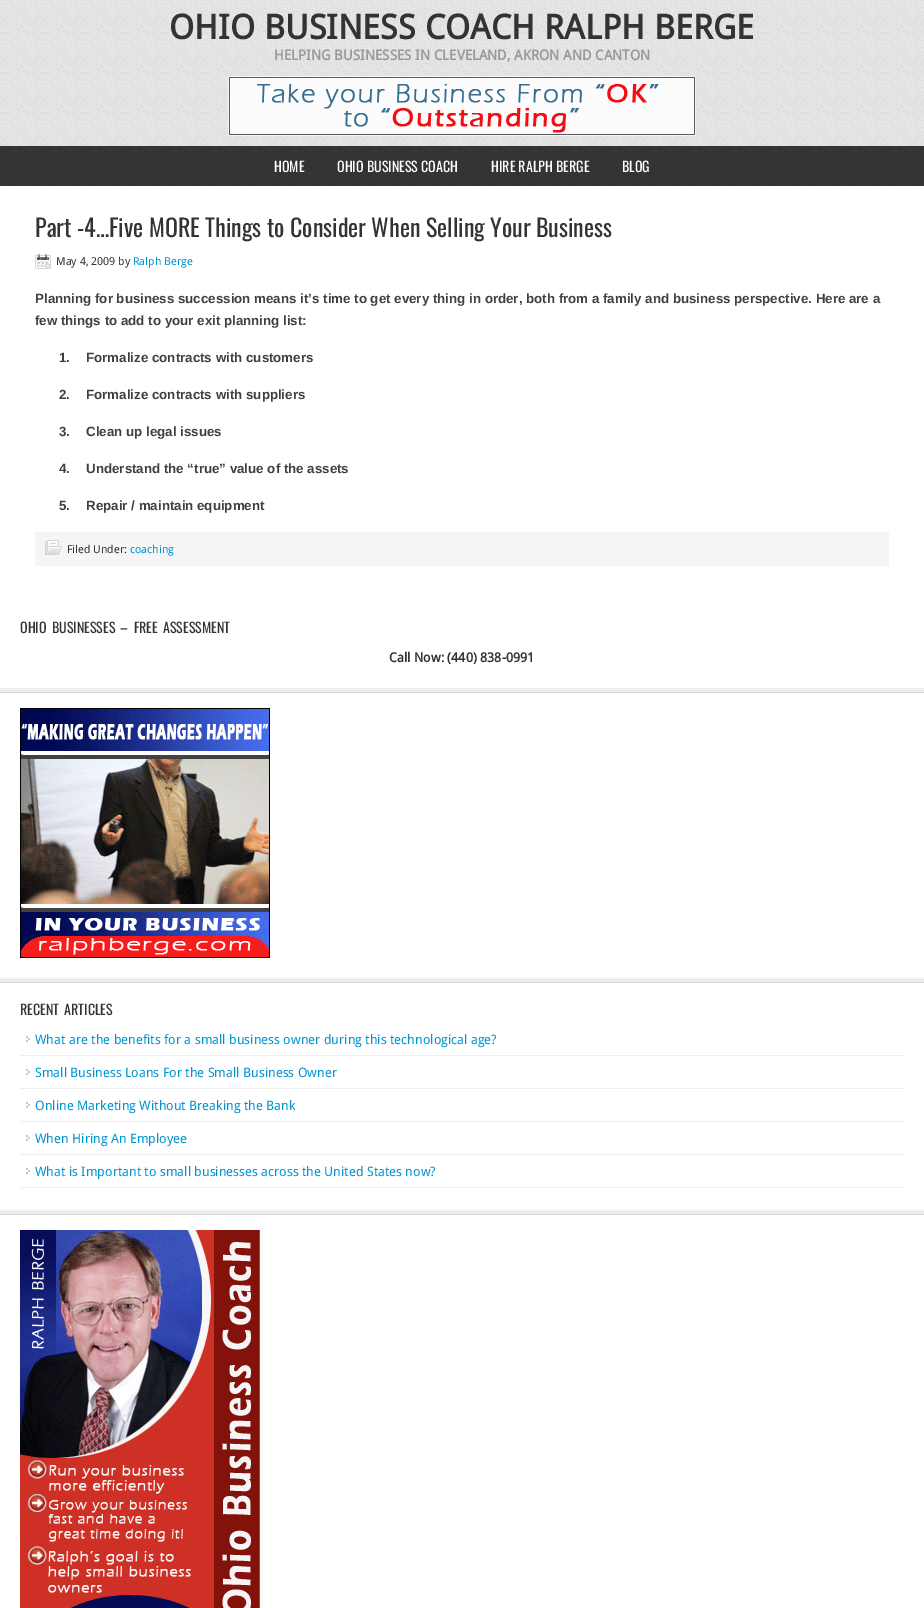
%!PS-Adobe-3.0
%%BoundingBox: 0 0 924 1608
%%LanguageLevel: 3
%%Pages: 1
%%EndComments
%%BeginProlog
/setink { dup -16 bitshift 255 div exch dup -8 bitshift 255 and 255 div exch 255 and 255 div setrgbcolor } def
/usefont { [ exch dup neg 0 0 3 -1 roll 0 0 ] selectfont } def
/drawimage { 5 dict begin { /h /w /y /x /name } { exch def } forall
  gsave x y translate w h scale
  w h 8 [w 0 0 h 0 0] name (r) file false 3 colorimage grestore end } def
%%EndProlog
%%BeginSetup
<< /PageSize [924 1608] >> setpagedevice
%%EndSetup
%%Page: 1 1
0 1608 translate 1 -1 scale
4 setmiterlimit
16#FFFFFF setink
0 0 924 1608 rectfill
(img1.raw) 0 0 924 146 drawimage
/DroidSans-Bold 34 usefont
16#333333 setink
169 39 moveto (OHIO BUSINESS COACH RALPH BERGE) show
/DroidSans-Bold 14 usefont
16#999999 setink
274 60 moveto (HELPING BUSINESSES IN CLEVELAND, AKRON AND CANTON) show
(img2.raw) 228 76 468 60 drawimage
(img3.raw) 0 146 924 40 drawimage
/Oswald-Regular 14 usefont
16#FFFFFF setink
[
    [(HOME) 274 172]
    [(OHIO BUSINESS COACH) 337 172]
    [(HIRE RALPH BERGE) 491 172]
    [(BLOG) 622 172]
] { aload pop moveto show } forall
/Oswald-Regular 24 usefont
16#333333 setink
35 237 moveto (Part -4…Five MORE Things to Consider When Selling Your Business) show
(img4.raw) 35 254 16 15 drawimage
/DroidSans-Regular 11 usefont
56 265 moveto (May 4, 2009 by) show
16#0094D2 setink
133 265 moveto (Ralph Berge) show
/LiberationSans-Bold 13.33 usefont
16#404040 setink
[
    [(Planning for business succession means it’s time to get every thing in order, both from a family and business perspective. Here are a) 35 303]
    [(few things to add to your exit planning list:) 35 325]
    [(1.) 59 362]
    [(Formalize contracts with customers) 86 362]
    [(2.) 59 399]
    [(Formalize contracts with suppliers) 86 399]
    [(3.) 59 436]
    [(Clean up legal issues) 86 436]
    [(4.) 59 473]
    [(Understand the “true” value of the assets) 86 473]
    [(5.) 59 510]
    [(Repair / maintain equipment) 86 510]
] { aload pop moveto show } forall
16#F5F5F5 setink
35 532 854 34 rectfill
(img5.raw) 45 540 17 15 drawimage
/DroidSans-Regular 11 usefont
16#333333 setink
67 553 moveto (Filed Under:) show
16#0094D2 setink
130 553 moveto (coaching) show
16#D5D5D5 setink
0 692 924 1 rectfill
16#EEEEEE setink
0 688 924 4 rectfill
/Oswald-Regular 14 usefont
16#333333 setink
20 633 moveto 2 0 32 (OHIO BUSINESSES – FREE ASSESSMENT) widthshow
/DroidSans-Bold 13 usefont
389 662 moveto (Call Now: \(440\) 838-0991) show
16#D5D5D5 setink
0 982 924 1 rectfill
16#EEEEEE setink
0 978 924 4 rectfill
(img6.raw) 20 708 250 250 drawimage
16#D5D5D5 setink
0 1214 924 1 rectfill
16#EEEEEE setink
0 1210 924 4 rectfill
/Oswald-Regular 14 usefont
16#333333 setink
20 1015 moveto 2 0 32 (RECENT ARTICLES) widthshow
(img7.raw) 26 1036 4 6 drawimage
16#EEEEEE setink
20 1055 884 1 rectfill
/DroidSans-Regular 13 usefont
16#0094D2 setink
35 1044 moveto (What are the benefits for a small business owner during this technological age?) show
(img7.raw) 26 1069 4 6 drawimage
16#EEEEEE setink
20 1088 884 1 rectfill
16#0094D2 setink
35 1077 moveto (Small Business Loans For the Small Business Owner) show
(img7.raw) 26 1102 4 6 drawimage
16#EEEEEE setink
20 1121 884 1 rectfill
16#0094D2 setink
35 1110 moveto (Online Marketing Without Breaking the Bank) show
(img7.raw) 26 1135 4 6 drawimage
16#EEEEEE setink
20 1154 884 1 rectfill
16#0094D2 setink
35 1143 moveto (When Hiring An Employee) show
(img7.raw) 26 1168 4 6 drawimage
16#EEEEEE setink
20 1187 884 1 rectfill
16#0094D2 setink
35 1176 moveto (What is Important to small businesses across the United States now?) show
(img8.raw) 20 1230 240 378 drawimage
showpage
%%EOF
